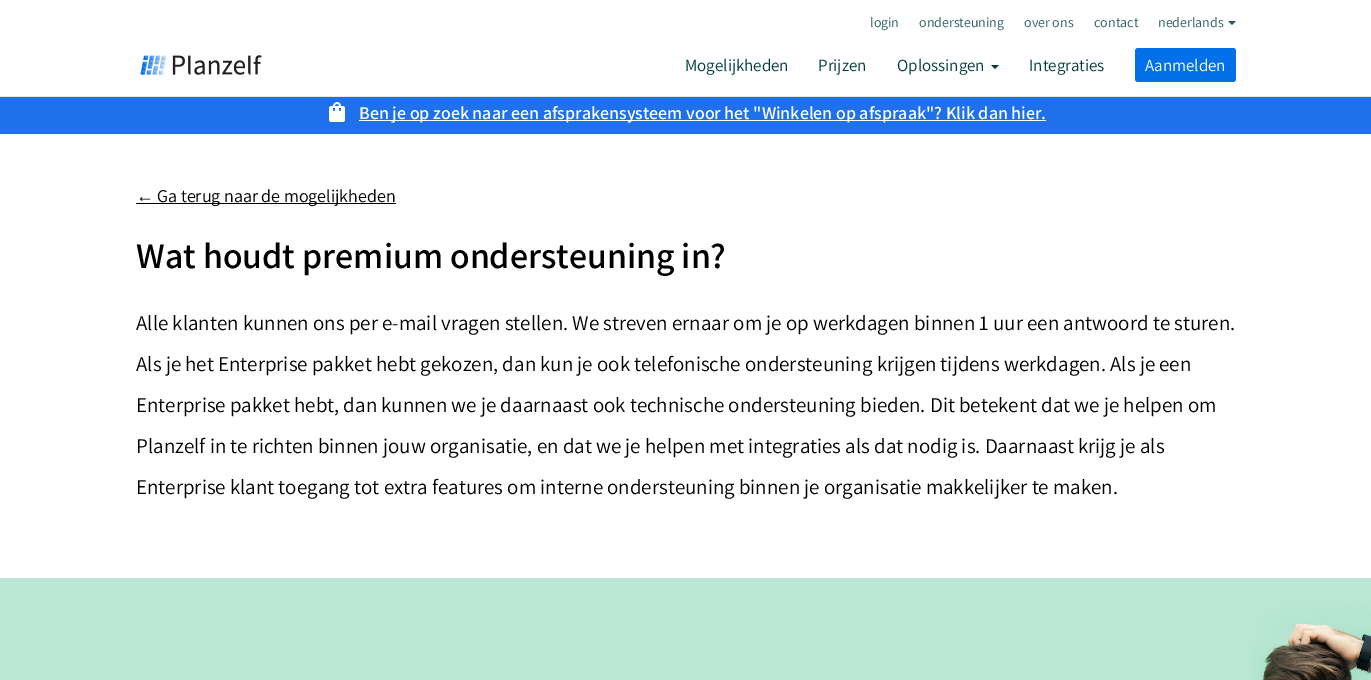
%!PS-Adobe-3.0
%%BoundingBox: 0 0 1371 680
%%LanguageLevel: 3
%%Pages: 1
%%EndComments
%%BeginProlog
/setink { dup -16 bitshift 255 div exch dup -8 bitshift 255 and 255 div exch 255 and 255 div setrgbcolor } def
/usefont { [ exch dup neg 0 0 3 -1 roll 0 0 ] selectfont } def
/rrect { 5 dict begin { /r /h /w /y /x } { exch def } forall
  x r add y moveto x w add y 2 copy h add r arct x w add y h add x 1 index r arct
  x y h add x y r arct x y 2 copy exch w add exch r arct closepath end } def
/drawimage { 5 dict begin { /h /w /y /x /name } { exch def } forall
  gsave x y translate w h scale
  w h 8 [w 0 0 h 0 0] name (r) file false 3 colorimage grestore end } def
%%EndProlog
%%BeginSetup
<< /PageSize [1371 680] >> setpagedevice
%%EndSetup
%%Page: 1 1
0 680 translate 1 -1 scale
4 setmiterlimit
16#FFFFFF setink
0 0 1371 680 rectfill
16#E6E6E6 setink
0 96 1371 1 rectfill
/Assistant-Regular 14 usefont
16#245B5F setink
[
    [(login) 870 27]
    [(ondersteuning) 919 27]
    [(over ons) 1024 27]
    [(contact) 1094 27]
    [(nederlands) 1158 27]
] { aload pop moveto show } forall
1228 21 moveto 1236 21 lineto 1232 25 lineto closepath fill
(img1.raw) 140 55 122 20 drawimage
/Assistant-Regular 17 usefont
16#003B41 setink
[
    [(Mogelijkheden) 685 71]
    [(Prijzen) 818 71]
    [(Oplossingen) 897 71]
] { aload pop moveto show } forall
991 65 moveto 999 65 lineto 995 69 lineto closepath fill
1029 71 moveto (Integraties) show
16#0270E9 setink
1135 48 101 34 3 rrect fill
16#FFFFFF setink
1145 71 moveto (Aanmelden) show
16#1F70EA setink
0 97 1371 37 rectfill
(img2.raw) 329 102 16 20 drawimage
16#FFFFFF setink
359 120 687 1 rectfill
/Assistant-SemiBold 18 usefont
359 119 moveto (Ben je op zoek naar een afsprakensysteem voor het "Winkelen op afspraak"? Klik dan hier.) show
/LiberationSans-Regular 18 usefont
16#000000 setink
136 202 moveto (←) show
136 203 260 1 rectfill
/Assistant-Regular 18 usefont
157 202 moveto (Ga terug naar de mogelijkheden) show
/Assistant-SemiBold 36 usefont
136 268 moveto (Wat houdt premium ondersteuning in?) show
/Assistant-Regular 21 usefont
[
    [(Alle klanten kunnen ons per e-mail vragen stellen. We streven ernaar om je op werkdagen binnen 1 uur een antwoord te sturen.) 136 330]
    [(Als je het Enterprise pakket hebt gekozen, dan kun je ook telefonische ondersteuning krijgen tijdens werkdagen. Als je een) 136 371]
    [(Enterprise pakket hebt, dan kunnen we je daarnaast ook technische ondersteuning bieden. Dit betekent dat we je helpen om) 136 412]
    [(Planzelf in te richten binnen jouw organisatie, en dat we je helpen met integraties als dat nodig is. Daarnaast krijg je als) 136 453]
    [(Enterprise klant toegang tot extra features om interne ondersteuning binnen je organisatie makkelijker te maken.) 136 494]
] { aload pop moveto show } forall
16#BAE7D5 setink
0 578 1371 102 rectfill
(img3.raw) 1250 604 121 76 drawimage
showpage
%%EOF
